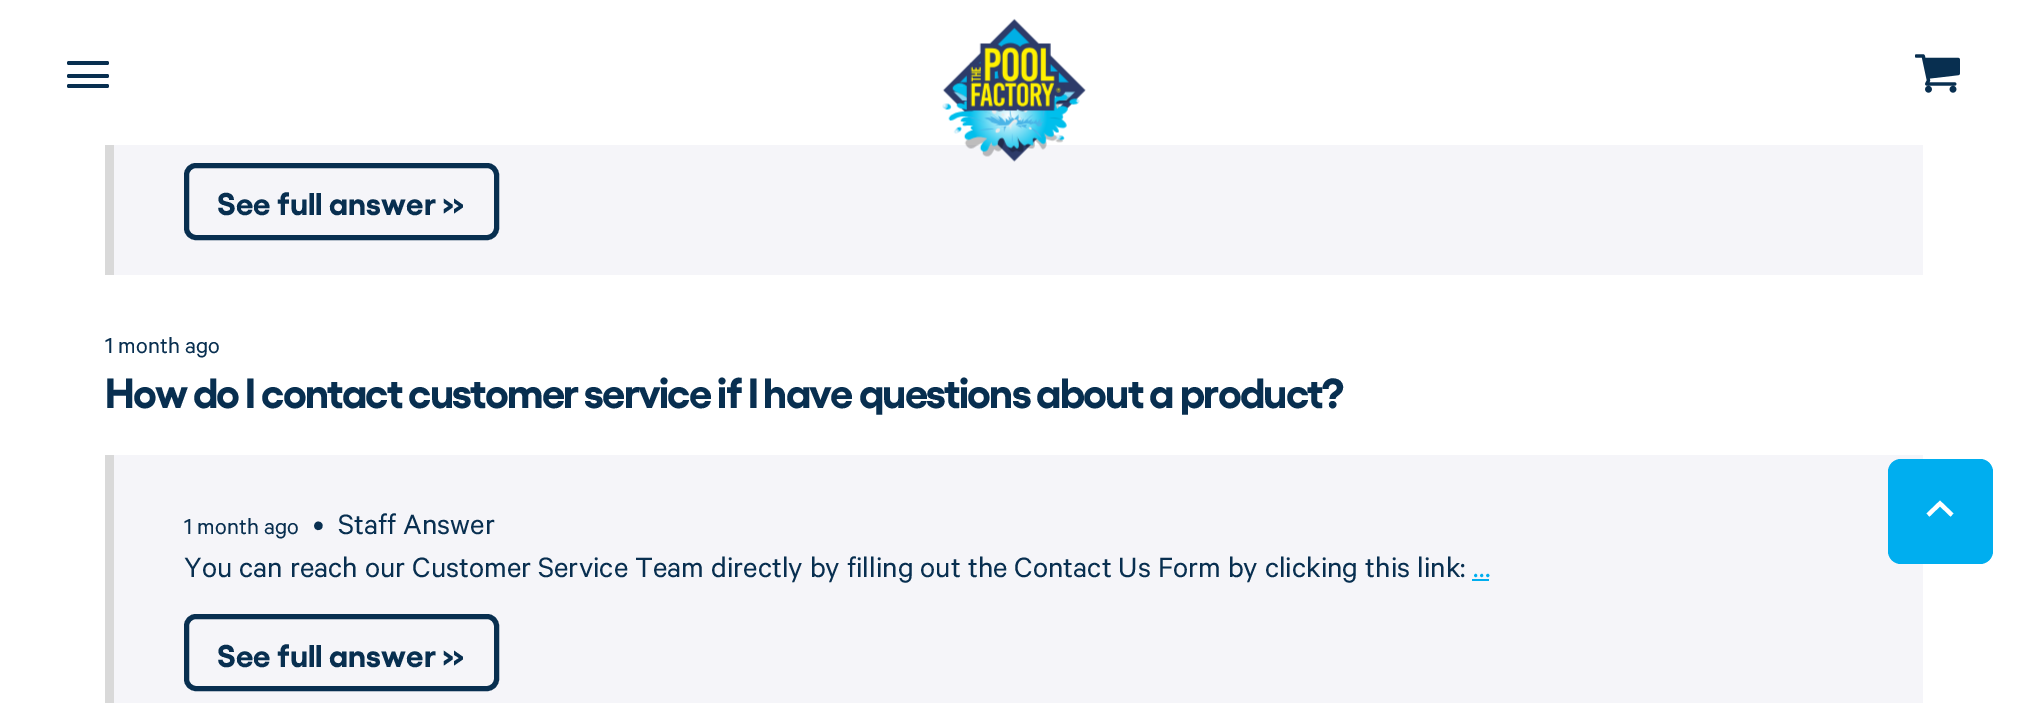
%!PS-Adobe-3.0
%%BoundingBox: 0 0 2028 703
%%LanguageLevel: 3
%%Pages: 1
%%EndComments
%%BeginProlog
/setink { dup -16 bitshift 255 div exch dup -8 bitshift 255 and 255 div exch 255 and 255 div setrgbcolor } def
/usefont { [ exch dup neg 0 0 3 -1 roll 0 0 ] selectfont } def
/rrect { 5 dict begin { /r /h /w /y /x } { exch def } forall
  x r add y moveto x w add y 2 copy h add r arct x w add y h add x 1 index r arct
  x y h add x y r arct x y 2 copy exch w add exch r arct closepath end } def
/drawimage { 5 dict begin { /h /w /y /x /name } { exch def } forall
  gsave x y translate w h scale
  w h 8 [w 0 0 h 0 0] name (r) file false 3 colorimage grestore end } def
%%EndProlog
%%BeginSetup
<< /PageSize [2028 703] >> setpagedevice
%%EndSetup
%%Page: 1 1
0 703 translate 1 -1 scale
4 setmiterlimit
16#FFFFFF setink
0 0 2028 703 rectfill
16#082F50 setink
67 61 42 4 2 rrect fill
67 74 42 4 2 rrect fill
67 84 42 4 2 rrect fill
16#F5F5F9 setink
114 145 1809 130 rectfill
(img1.raw) 942 18 144 144 drawimage
(img2.raw) 1915 54 45 39 drawimage
16#D9D9D9 setink
105 145 9 130 rectfill
16#082F50 setink
5 setlinewidth
186.5 165.5 310 72 9.5 rrect stroke
/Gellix-Bold 31.5 usefont
217 215 moveto (See full answer ») show
/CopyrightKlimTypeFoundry-Regular 24.5 usefont
105 353 moveto (1 month ago) show
/Gellix-Bold 42 usefont
105 408 moveto -1.75 0 (How do I contact customer service if I have questions about a product?) ashow
16#F5F5F9 setink
114 455 1809 248 rectfill
16#D9D9D9 setink
105 455 9 248 rectfill
/CopyrightKlimTypeFoundry-Regular 24.5 usefont
16#082F50 setink
184 534 moveto (1 month ago) show
/CopyrightKlimTypeFoundry-Regular 31.5 usefont
313 534 moveto (•  Staff Answer) show
184 577 moveto (You can reach our Customer Service Team directly by filling out the Contact Us Form by clicking this link:) show
16#00AEEF setink
1473 577 moveto (…) show
1472 579 17 2 rectfill
16#082F50 setink
186.5 616.5 310 72 9.5 rrect stroke
/Gellix-Bold 31.5 usefont
217 667 moveto (See full answer ») show
16#00AEEF setink
1888 459 105 105 13 rrect fill
16#FFFFFF setink
4.2 setlinewidth
1952 515 moveto 1940 503.5 lineto 1928 515 lineto stroke
showpage
%%EOF
